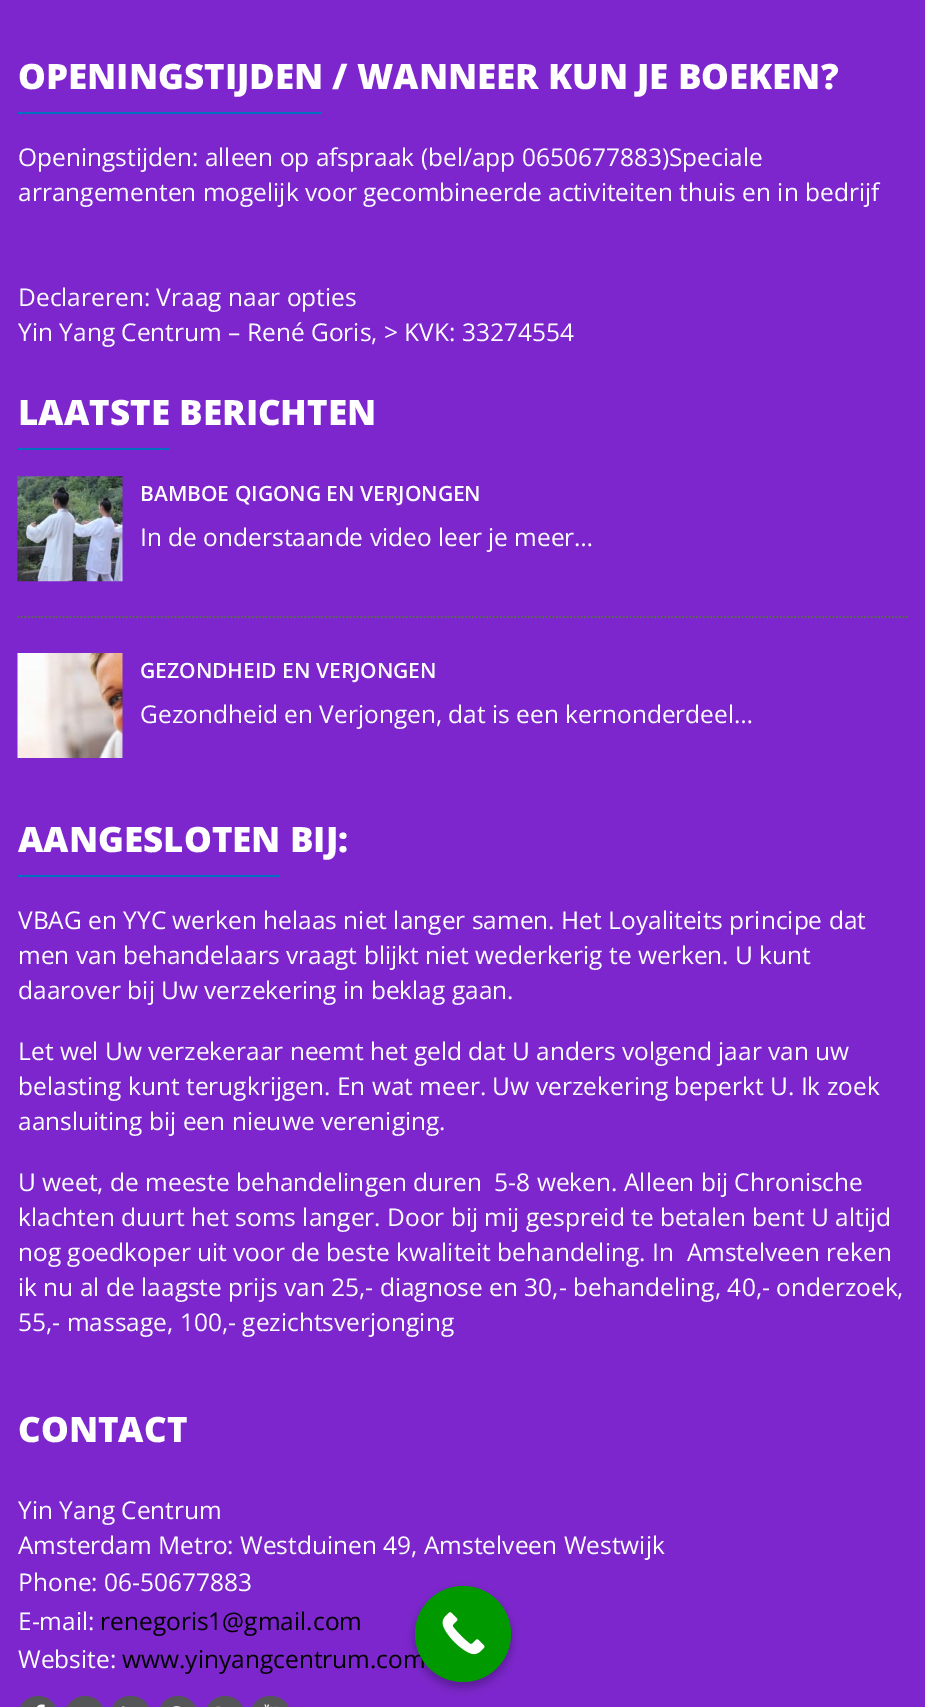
%!PS-Adobe-3.0
%%BoundingBox: 0 0 925 1707
%%LanguageLevel: 3
%%Pages: 1
%%EndComments
%%BeginProlog
/setink { dup -16 bitshift 255 div exch dup -8 bitshift 255 and 255 div exch 255 and 255 div setrgbcolor } def
/usefont { [ exch dup neg 0 0 3 -1 roll 0 0 ] selectfont } def
/setalpha { dup .setfillconstantalpha .setstrokeconstantalpha } def
/disc { newpath 0 360 arc closepath } def
/rrect { 5 dict begin { /r /h /w /y /x } { exch def } forall
  x r add y moveto x w add y 2 copy h add r arct x w add y h add x 1 index r arct
  x y h add x y r arct x y 2 copy exch w add exch r arct closepath end } def
/softshadow { 12 dict begin { /a /b /q /h /w /y /x } { exch def } forall gsave /was 0 def
  9 -2 -9 { dup b mul 4 div /e exch def 1 sub .425 mul 2.718 exch exp 1 add a .99 .min exch div /now exch def
    1 1 now sub 1 was sub div sub setalpha /was now def
    w h .min e 2 mul add 0 gt { x e sub y e sub w e 2 mul add h e 2 mul add
      q e add b .6 mul add w h .min 2 div e add .min 0 .max rrect fill } if } for grestore end } def
/drawimage { 5 dict begin { /h /w /y /x /name } { exch def } forall
  gsave x y translate w h scale
  w h 8 [w 0 0 h 0 0] name (r) file false 3 colorimage grestore end } def
%%EndProlog
%%BeginSetup
<< /PageSize [925 1707] /PageUsesTransparency true >> setpagedevice
%%EndSetup
%%Page: 1 1
0 .pushpdf14devicefilter
0 1707 translate 1 -1 scale
4 setmiterlimit
16#7D26CD setink
0 0 925 1707 rectfill
/OpenSans-ExtraBold 35 usefont
16#FFFFFF setink
18 89 moveto (OPENINGSTIJDEN / WANNEER KUN JE BOEKEN?) show
16#0072BF setink
18 112 304 2 rectfill
/OpenSans-Regular 24.5 usefont
16#FFFFFF setink
[
    [(Openingstijden: alleen op afspraak \(bel/app 0650677883\)Speciale) 18 166]
    [(arrangementen mogelijk voor gecombineerde activiteiten thuis en in bedrijf) 18 201]
    [(Declareren: Vraag naar opties) 18 306]
    [(Yin Yang Centrum – René Goris, > KVK: 33274554) 18 341]
] { aload pop moveto show } forall
/OpenSans-ExtraBold 35 usefont
18 425 moveto (LAATSTE BERICHTEN) show
16#0072BF setink
18 448 152 2 rectfill
16#5E6162 setink
1.8 setlinewidth
[1.75 1.75] 0 setdash
17.5 617 moveto 908 617 lineto stroke
(img1.raw) 17 476 106 106 drawimage
/OpenSans-SemiBold 21 usefont
16#FFFFFF setink
140 501 moveto (BAMBOE QIGONG EN VERJONGEN) show
/OpenSans-Regular 24.5 usefont
140 546 moveto (In de onderstaande video leer je meer…) show
(img2.raw) 17 653 106 105 drawimage
/OpenSans-SemiBold 21 usefont
140 678 moveto (GEZONDHEID EN VERJONGEN) show
/OpenSans-Regular 24.5 usefont
140 723 moveto (Gezondheid en Verjongen, dat is een kernonderdeel…) show
/OpenSans-ExtraBold 35 usefont
18 852 moveto (AANGESLOTEN BIJ:) show
16#0072BF setink
18 875 262 2 rectfill
/OpenSans-Regular 24.5 usefont
16#FFFFFF setink
[
    [(VBAG en YYC werken helaas niet langer samen. Het Loyaliteits principe dat) 18 929]
    [(men van behandelaars vraagt blijkt niet wederkerig te werken. U kunt) 18 964]
    [(daarover bij Uw verzekering in beklag gaan.) 18 999]
    [(Let wel Uw verzekeraar neemt het geld dat U anders volgend jaar van uw) 18 1060]
    [(belasting kunt terugkrijgen. En wat meer. Uw verzekering beperkt U. Ik zoek) 18 1095]
    [(aansluiting bij een nieuwe vereniging.) 18 1130]
    [(U weet, de meeste behandelingen duren  5-8 weken. Alleen bij Chronische) 18 1191]
    [(klachten duurt het soms langer. Door bij mij gespreid te betalen bent U altijd) 18 1226]
    [(nog goedkoper uit voor de beste kwaliteit behandeling. In  Amstelveen reken) 18 1261]
    [(ik nu al de laagste prijs van 25,- diagnose en 30,- behandeling, 40,- onderzoek,) 18 1296]
    [(55,- massage, 100,- gezichtsverjonging) 18 1331]
] { aload pop moveto show } forall
/OpenSans-ExtraBold 35 usefont
18 1442 moveto (CONTACT) show
/OpenSans-Regular 24.5 usefont
[
    [(Yin Yang Centrum) 18 1519]
    [(Amsterdam Metro: Westduinen 49, Amstelveen Westwijk) 18 1554]
    [(Phone: 06-50677883) 18 1591]
    [(E-mail:) 18 1630]
] { aload pop moveto show } forall
16#000000 setink
100 1630 moveto (renegoris1@gmail.com) show
16#FFFFFF setink
18 1668 moveto (Website:) show
16#000000 setink
122 1668 moveto (www.yinyangcentrum.com) show
16#545556 setink
18 1696 40 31 20 rrect fill
(img3.raw) 37 1704 8 3 drawimage
65 1696 40 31 20 rrect fill
110 1696 41 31 20 rrect fill
(img4.raw) 122 1706 3 1 drawimage
158 1696 40 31 20 rrect fill
(img5.raw) 173 1706 8 1 drawimage
205 1696 40 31 20 rrect fill
(img6.raw) 216 1706 5 1 drawimage
250 1696 41 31 20 rrect fill
(img7.raw) 264 1704 14 3 drawimage
16#000000 setink
415 1591 96 96 48 5 0.3 softshadow
16#009900 setink
463 1634 48 disc fill
(img8.raw) 442 1612 43 43 drawimage
.poppdf14devicefilter showpage
%%EOF
